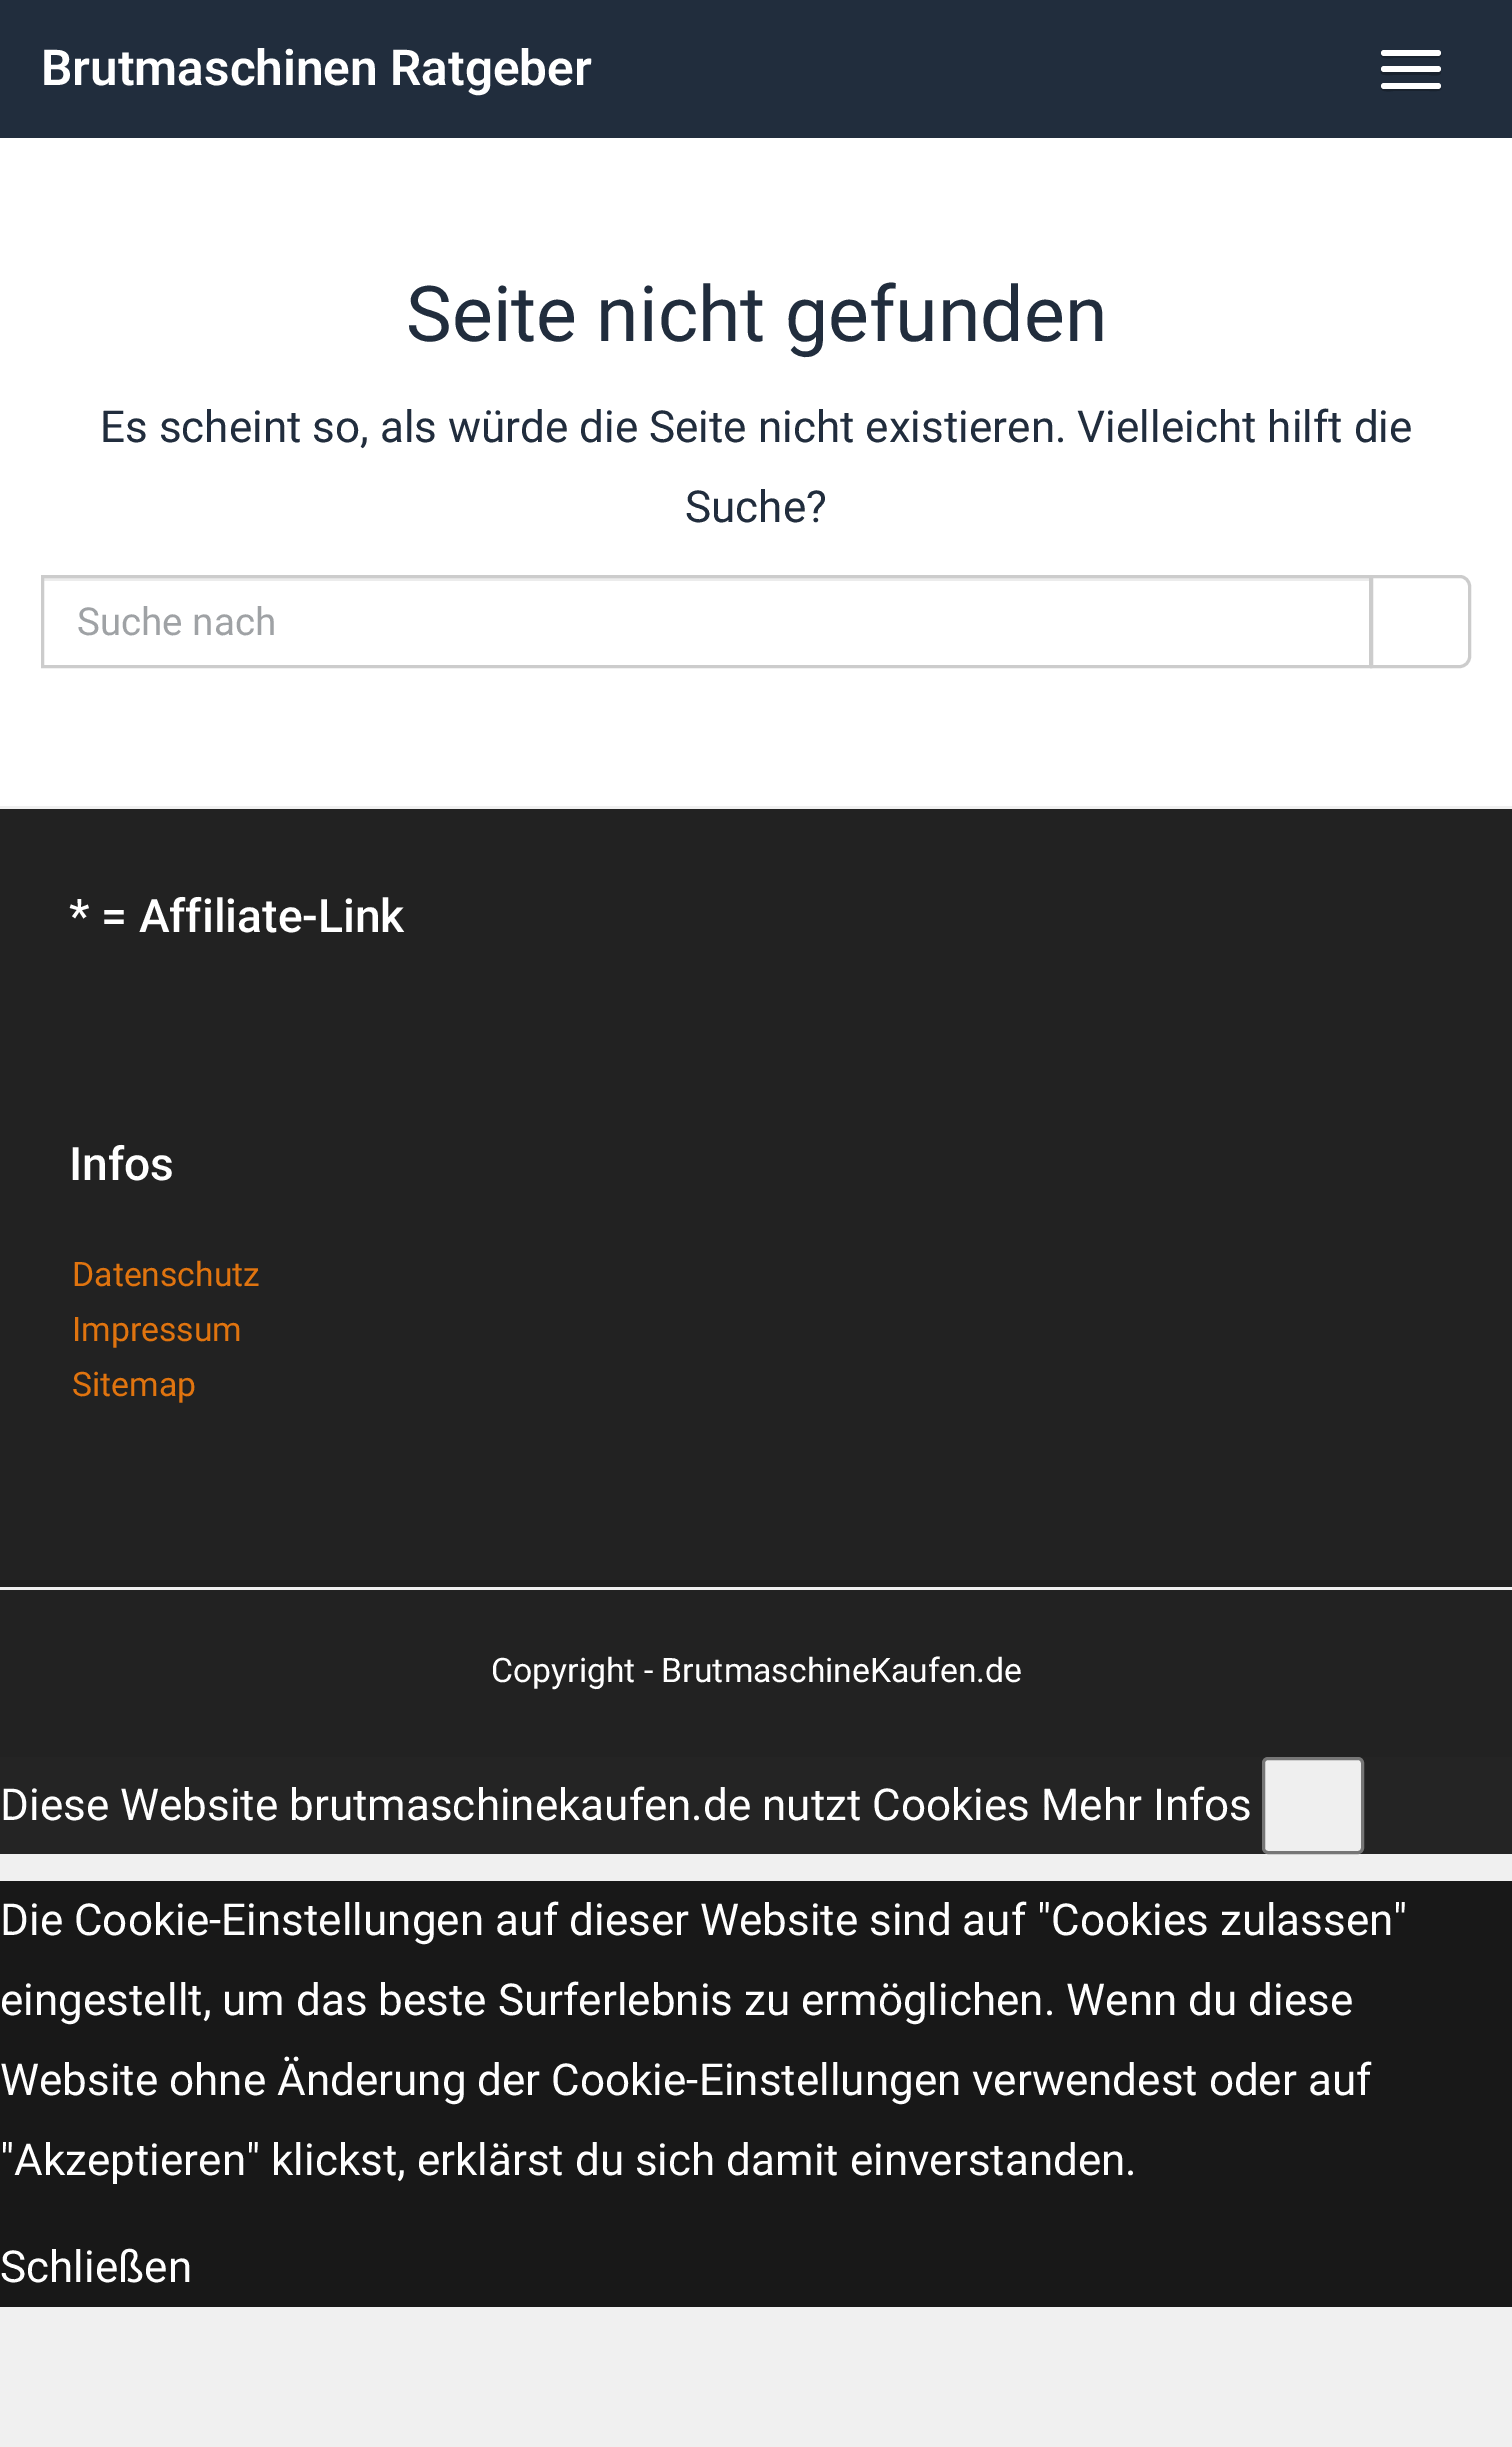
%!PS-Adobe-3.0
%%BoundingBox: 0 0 1512 2447
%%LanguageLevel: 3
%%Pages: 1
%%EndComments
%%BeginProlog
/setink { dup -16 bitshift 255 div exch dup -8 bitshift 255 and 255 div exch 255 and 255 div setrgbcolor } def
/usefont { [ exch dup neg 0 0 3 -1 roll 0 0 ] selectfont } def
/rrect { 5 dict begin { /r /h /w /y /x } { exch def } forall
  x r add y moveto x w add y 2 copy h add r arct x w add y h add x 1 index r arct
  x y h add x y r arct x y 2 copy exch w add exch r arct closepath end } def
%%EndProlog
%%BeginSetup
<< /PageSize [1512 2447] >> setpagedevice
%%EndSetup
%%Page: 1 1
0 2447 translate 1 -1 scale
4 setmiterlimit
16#F0F0F0 setink
0 0 1512 2447 rectfill
16#212D3D setink
0 0 1512 138 rectfill
/Roboto-SemiBold 49.5 usefont
16#FFFFFF setink
41 85 moveto (Brutmaschinen Ratgeber) show
16#19222E setink
1381 54 moveto 1379 60 1393 58 1393 58 curveto 1429 58 lineto 1435 58 1443 59 1441 54 curveto 1440 54 1439 55 1438 55 curveto 1383 55 lineto 1382 55 1382 55 1381 54 curveto closepath fill
16#FFFFFF setink
1381 50 60 6 3 rrect fill
16#19222E setink
1381 71 moveto 1379 76 1387 75 1393 75 curveto 1429 75 lineto 1430 75 1440 77 1441 73 curveto 1440 70 lineto 1439 73 1431 72 1429 72 curveto 1423 72 1383 73 1381 71 curveto closepath fill
16#FFFFFF setink
1381 66 60 6 3 rrect fill
16#19222E setink
1381 87 moveto 1379 93 1393 91 1393 91 curveto 1429 91 lineto 1435 91 1443 92 1441 87 curveto 1440 87 1439 88 1438 88 curveto 1383 88 lineto 1382 88 1382 88 1381 87 curveto closepath fill
16#FFFFFF setink
1381 83 60 6 3 rrect fill
0 138 1512 668 rectfill
/Roboto-Regular 77 usefont
16#212D3D setink
406 341 moveto (Seite nicht gefunden) show
/Roboto-Regular 44 usefont
100 442 moveto (Es scheint so, als würde die Seite nicht existieren. Vielleicht hilft die) show
685 522 moveto (Suche?) show
16#ECECEC setink
44 578 1326 3 rectfill
16#CCCCCC setink
3 setlinewidth
42.5 576.5 1328 90 rectstroke
/Roboto-Regular 38.5 usefont
16#9FA2A5 setink
77 635 moveto (Suche nach) show
16#FFFFFF setink
1371.5 576.5 moveto 1460 576.5 lineto 1465 576.5 1469.5 581 1469.5 586 curveto 1469.5 657 lineto 1469.5 662 1465 666.5 1460 666.5 curveto 1371.5 666.5 lineto closepath gsave fill grestore
16#CCCCCC setink
stroke
16#222222 setink
0 809 1512 778 rectfill
/Roboto-Medium 46.25 usefont
16#FFFFFF setink
69 932 moveto (* = Affiliate-Link) show
69 1180 moveto (Infos) show
/Roboto-Regular 33.75 usefont
16#E0740F setink
[
    [(Datenschutz) 72 1286]
    [(Impressum) 72 1341]
    [(Sitemap) 72 1396]
] { aload pop moveto show } forall
16#222222 setink
0 1590 1512 167 rectfill
16#FFFFFF setink
491 1682 moveto (Copyright - BrutmaschineKaufen.de) show
16#242424 setink
0 1757 1512 97 rectfill
/Roboto-Regular 44 usefont
16#FFFFFF setink
0 1820 moveto (Diese Website brutmaschinekaufen.de nutzt Cookies Mehr Infos) show
16#EFEFEF setink
1263.5 1758.5 99 94 4.5 rrect gsave fill grestore
16#767676 setink
stroke
16#181818 setink
0 1881 1512 426 rectfill
16#FFFFFF setink
[
    [(Die Cookie-Einstellungen auf dieser Website sind auf "Cookies zulassen") 0 1935]
    [(eingestellt, um das beste Surferlebnis zu ermöglichen. Wenn du diese) 0 2015]
    [(Website ohne Änderung der Cookie-Einstellungen verwendest oder auf) 0 2095]
    [("Akzeptieren" klickst, erklärst du sich damit einverstanden.) 0 2175]
    [(Schließen) 0 2282]
] { aload pop moveto show } forall
showpage
%%EOF
